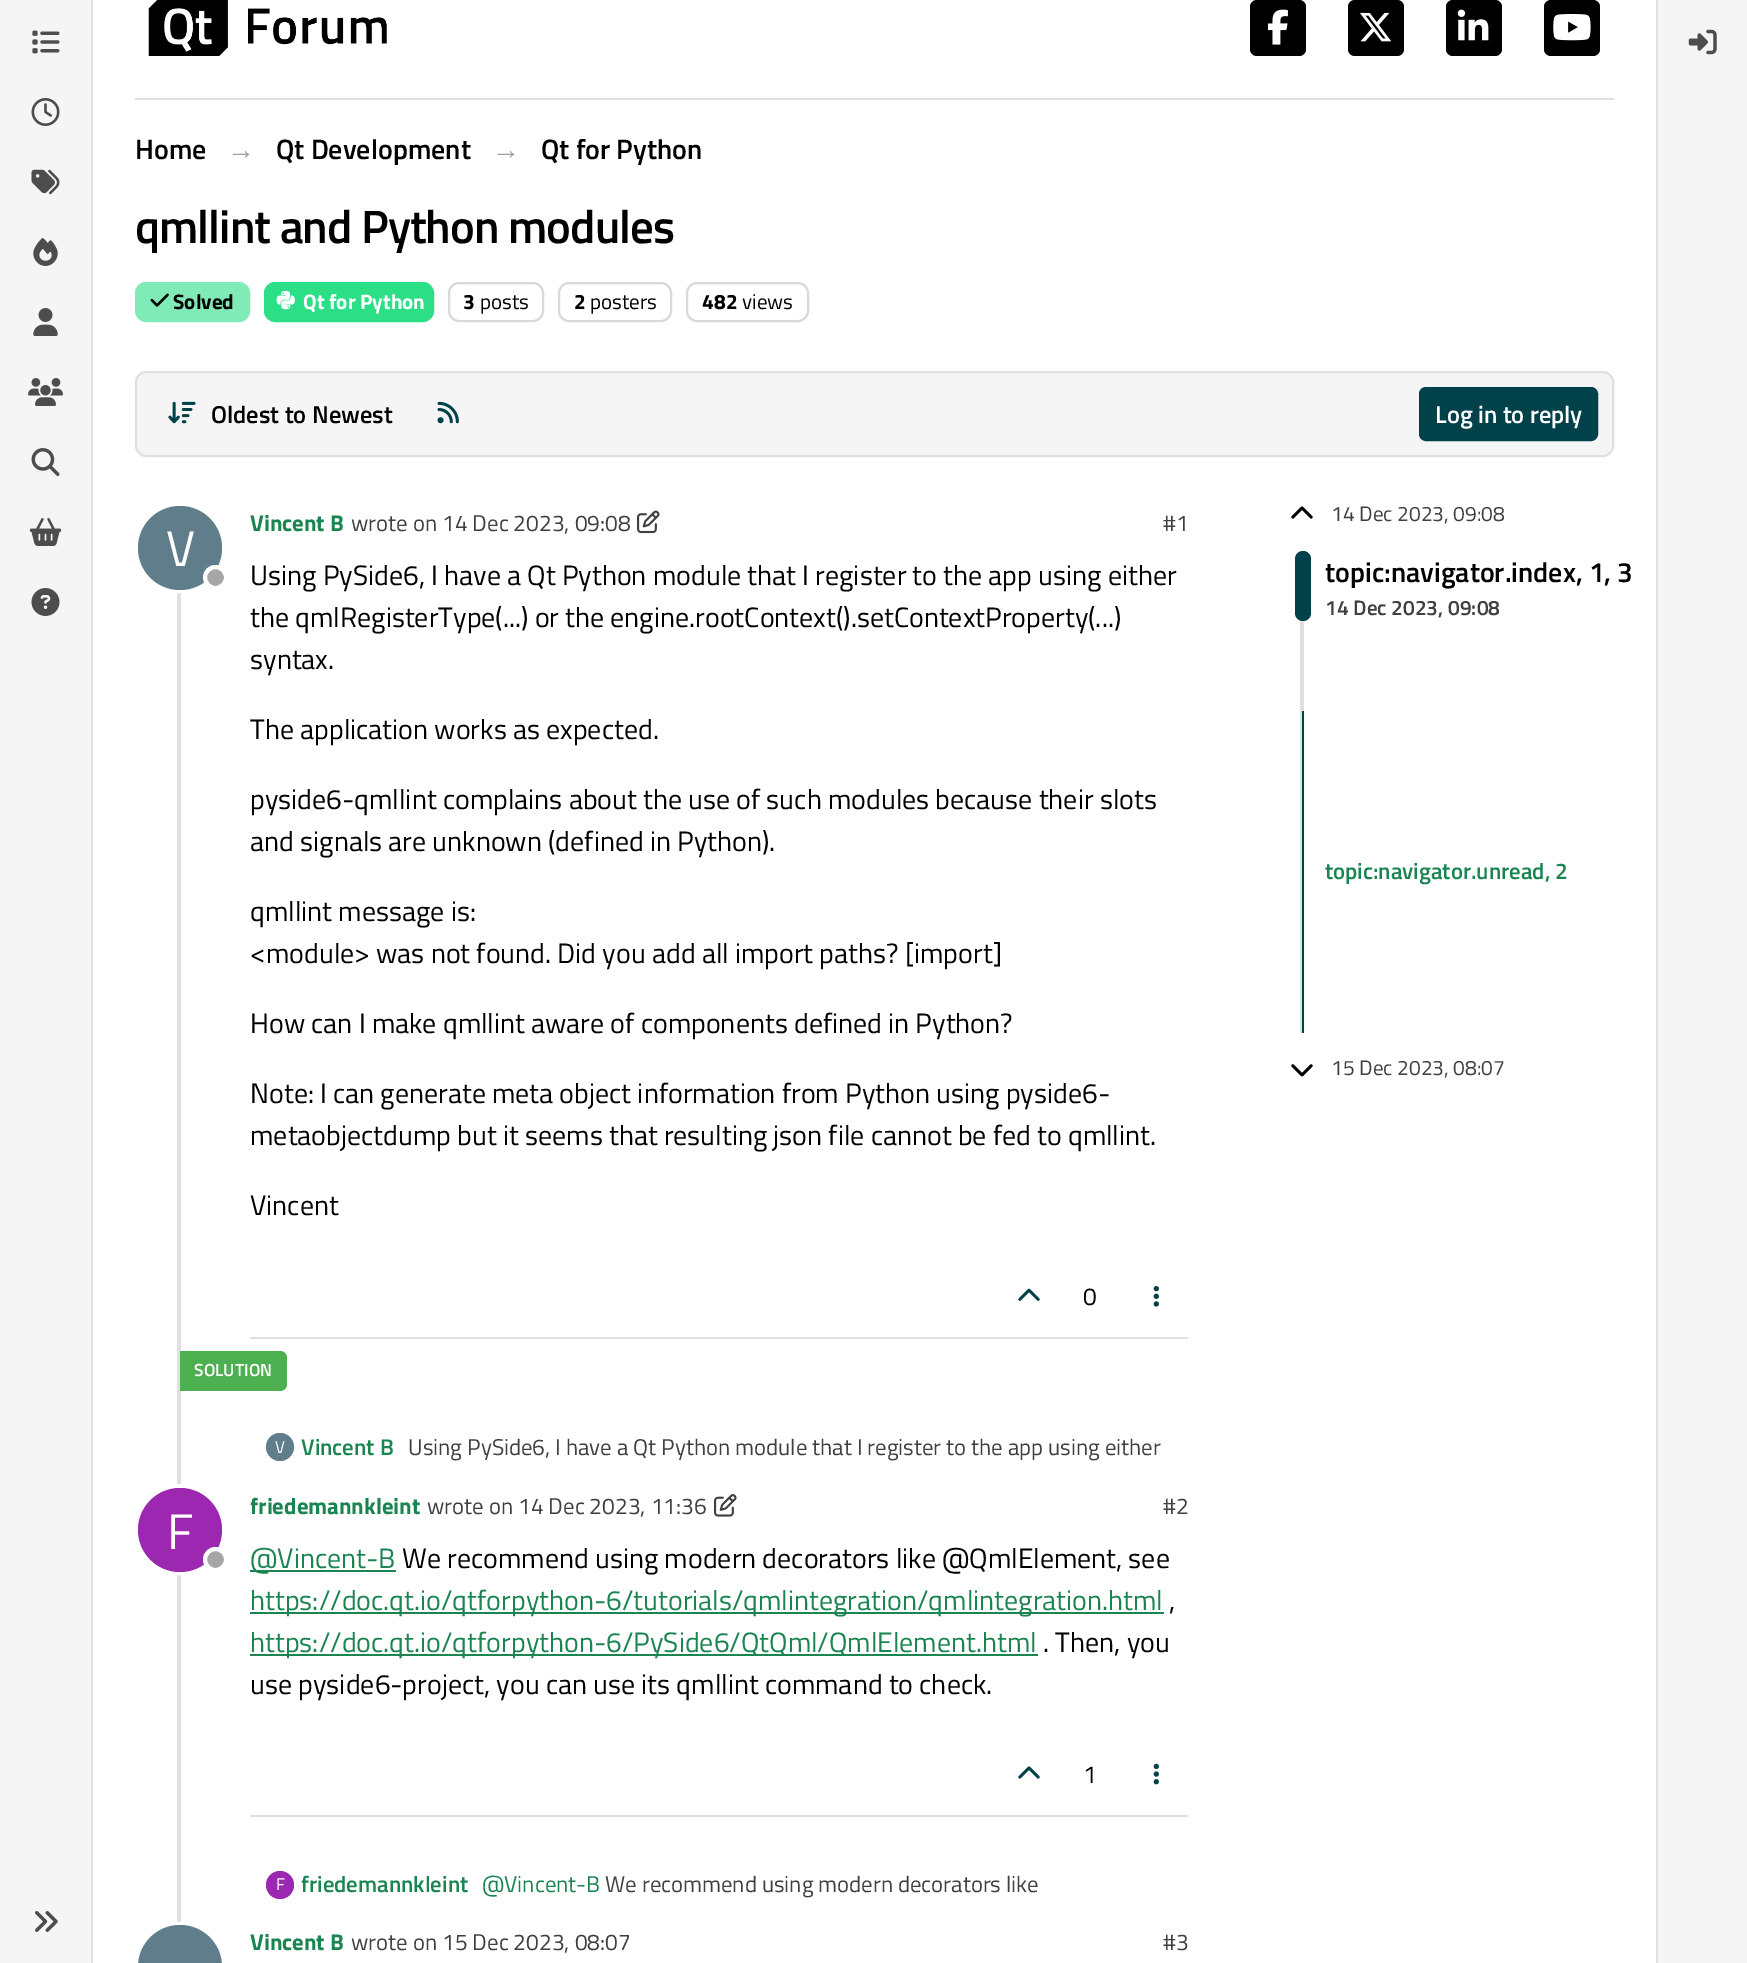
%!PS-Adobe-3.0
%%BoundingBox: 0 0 1747 1963
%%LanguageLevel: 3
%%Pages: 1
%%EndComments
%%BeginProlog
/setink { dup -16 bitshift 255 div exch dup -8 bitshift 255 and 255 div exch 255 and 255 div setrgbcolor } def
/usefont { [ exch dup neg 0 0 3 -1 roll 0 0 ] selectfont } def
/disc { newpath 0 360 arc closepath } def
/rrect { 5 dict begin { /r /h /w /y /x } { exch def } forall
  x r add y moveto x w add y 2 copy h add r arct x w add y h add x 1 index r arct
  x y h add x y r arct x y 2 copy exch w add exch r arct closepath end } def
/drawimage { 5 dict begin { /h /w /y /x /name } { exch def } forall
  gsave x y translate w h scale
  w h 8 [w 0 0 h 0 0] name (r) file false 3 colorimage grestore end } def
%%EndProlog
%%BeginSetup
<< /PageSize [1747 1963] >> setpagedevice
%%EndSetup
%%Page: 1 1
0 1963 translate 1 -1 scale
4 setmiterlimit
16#FFFFFF setink
0 0 1747 1963 rectfill
16#F5F5F5 setink
0 0 91 1963 rectfill
16#E0E0E0 setink
91 0 2 1963 rectfill
(img1.raw) 32 30 28 24 drawimage
(img2.raw) 31 98 29 28 drawimage
(img3.raw) 31 169 29 26 drawimage
(img4.raw) 33 238 25 28 drawimage
(img5.raw) 33 308 25 28 drawimage
(img6.raw) 28 378 35 28 drawimage
(img7.raw) 31 448 29 28 drawimage
(img8.raw) 29 518 33 28 drawimage
(img9.raw) 31 588 29 28 drawimage
(img10.raw) 35 1911 23 21 drawimage
135 98 1479 2 rectfill
(img11.raw) 148 0 239 56 drawimage
16#000000 setink
1250 0 56 56 7 rrect fill
(img12.raw) 1267 9 21 36 drawimage
1348 0 56 56 7 rrect fill
(img13.raw) 1360 12 32 30 drawimage
1446 0 56 56 7 rrect fill
(img14.raw) 1457 9 32 32 drawimage
1544 0 56 56 7 rrect fill
(img15.raw) 1553 14 38 27 drawimage
/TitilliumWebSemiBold-SemiBold 28 usefont
135 159 moveto (Home) show
/LiberationSans-Bold 28 usefont
16#9E9E9E setink
227 159 moveto (→) show
/TitilliumWebSemiBold-SemiBold 28 usefont
16#000000 setink
276 159 moveto (Qt Development) show
/LiberationSans-Bold 28 usefont
16#9E9E9E setink
492 159 moveto (→) show
/TitilliumWebSemiBold-SemiBold 28 usefont
16#000000 setink
541 159 moveto (Qt for Python) show
/TitilliumWebSemiBold-SemiBold 46.9 usefont
135 243 moveto -0.95 0 (qmllint and Python modules) ashow
16#80EBB6 setink
136 283 113 38 10 rrect gsave fill grestore
2 setlinewidth
stroke
(img16.raw) 150 293 19 14 drawimage
/TitilliumWeb-Bold 21 usefont
16#000000 setink
173 309 moveto (Solved) show
16#2CDE85 setink
265 283 168 38 10 rrect gsave fill grestore
stroke
(img17.raw) 276 290 19 20 drawimage
16#FFFFFF setink
303 309 moveto (Qt for Python) show
16#D9D9D9 setink
449 283 94 38 10 rrect stroke
16#000000 setink
463 309 moveto (3) show
/TitilliumWeb-Regular 21 usefont
480 309 moveto (posts) show
16#D9D9D9 setink
559 283 112 38 10 rrect stroke
/TitilliumWeb-Bold 21 usefont
16#000000 setink
574 309 moveto (2) show
/TitilliumWeb-Regular 21 usefont
590 309 moveto (posters) show
16#D9D9D9 setink
687 283 121 38 10 rrect stroke
/TitilliumWeb-Bold 21 usefont
16#000000 setink
702 309 moveto (482) show
/TitilliumWeb-Regular 21 usefont
742 309 moveto (views) show
16#F5F5F5 setink
136 372 1477 84 10 rrect gsave fill grestore
16#E0E0E0 setink
stroke
(img18.raw) 168 401 28 23 drawimage
/TitilliumWebSemiBold-SemiBold 24.5 usefont
16#000000 setink
211 423 moveto (Oldest to Newest) show
(img19.raw) 437 401 22 23 drawimage
16#00414A setink
1420 388 177 52 6 rrect gsave fill grestore
stroke
16#FFFFFF setink
1435 423 moveto (Log in to reply) show
16#E0E0E0 setink
177 506 4 1417 rectfill
16#FFFFFF setink
4 setlinewidth
180.5 547.5 43.5 disc stroke
16#607D8B setink
180 548 42 disc fill
/TitilliumWeb-Regular 50 usefont
16#FFFFFF setink
166 566 moveto (V) show
16#A6A6A6 setink
215.5 577.5 10.5 disc gsave fill grestore
16#FFFFFF setink
stroke
/TitilliumWeb-Bold 22.75 usefont
16#1A8550 setink
250 531 moveto (Vincent B) show
/TitilliumWeb-Regular 22.75 usefont
16#404040 setink
351 531 moveto (wrote on 14 Dec 2023, 09:08) show
(img20.raw) 637 510 23 24 drawimage
1163 531 moveto (#1) show
/TitilliumWeb-Regular 28 usefont
16#000000 setink
[
    [(Using PySide6, I have a Qt Python module that I register to the app using either) 250 585]
    [(the qmlRegisterType\(...\) or the engine.rootContext\(\).setContextProperty\(...\)) 250 627]
    [(syntax.) 250 669]
    [(The application works as expected.) 250 739]
    [(pyside6-qmllint complains about the use of such modules because their slots) 250 809]
    [(and signals are unknown \(defined in Python\).) 250 851]
    [(qmllint message is:) 250 921]
    [(<module> was not found. Did you add all import paths? [import]) 250 963]
    [(How can I make qmllint aware of components defined in Python?) 250 1033]
    [(Note: I can generate meta object information from Python using pyside6-) 250 1103]
    [(metaobjectdump but it seems that resulting json file cannot be fed to qmllint.) 250 1145]
    [(Vincent) 250 1215]
] { aload pop moveto show } forall
16#E0E0E0 setink
250 1337 938 2 rectfill
(img21.raw) 1018 1288 22 13 drawimage
/TitilliumWeb-Regular 24.5 usefont
16#000000 setink
1083 1305 moveto (0) show
(img22.raw) 1153 1286 6 21 drawimage
16#4CAF50 setink
180 1351 moveto 280 1351 lineto 284 1351 287 1354 287 1358 curveto 287 1384 lineto 287 1388 284 1391 280 1391 curveto 180 1391 lineto closepath fill
/TitilliumWebSemiBold-SemiBold 17.5 usefont
16#FFFFFF setink
194 1376 moveto (SOLUTION) show
16#607D8B setink
280 1447 14 disc fill
/TitilliumWeb-Regular 17 usefont
16#FFFFFF setink
275 1453 moveto (V) show
/TitilliumWebSemiBold-SemiBold 22.75 usefont
16#1A8550 setink
301 1455 moveto (Vincent B) show
/TitilliumWeb-Regular 22.75 usefont
16#404040 setink
408 1455 moveto (Using PySide6, I have a Qt Python module that I register to the app using either) show
16#FFFFFF setink
180.5 1529.5 43.5 disc stroke
16#9C27B0 setink
180 1530 42 disc fill
/TitilliumWeb-Regular 50 usefont
16#FFFFFF setink
167 1549 moveto (F) show
16#A6A6A6 setink
215.5 1559.5 10.5 disc gsave fill grestore
16#FFFFFF setink
stroke
/TitilliumWeb-Bold 22.75 usefont
16#1A8550 setink
250 1514 moveto (friedemannkleint) show
/TitilliumWeb-Regular 22.75 usefont
16#404040 setink
427 1514 moveto (wrote on 14 Dec 2023, 11:36) show
(img23.raw) 714 1494 23 23 drawimage
1163 1514 moveto (#2) show
16#1A8550 setink
250 1570 146 2 rectfill
/TitilliumWeb-Regular 28 usefont
250 1568 moveto (@Vincent-B) show
16#000000 setink
402 1568 moveto (We recommend using modern decorators like @QmlElement, see) show
16#1A8550 setink
250 1612 914 2 rectfill
250 1610 moveto (https://doc.qt.io/qtforpython-6/tutorials/qmlintegration/qmlintegration.html) show
16#000000 setink
1169 1610 moveto (,) show
16#1A8550 setink
250 1654 788 2 rectfill
250 1652 moveto (https://doc.qt.io/qtforpython-6/PySide6/QtQml/QmlElement.html) show
16#000000 setink
1043 1652 moveto (. Then, you) show
250 1694 moveto (use pyside6-project, you can use its qmllint command to check.) show
16#E0E0E0 setink
250 1815 938 2 rectfill
(img24.raw) 1018 1766 22 13 drawimage
/TitilliumWeb-Regular 24.5 usefont
16#000000 setink
1083 1783 moveto (1) show
(img25.raw) 1153 1763 6 22 drawimage
16#9C27B0 setink
280 1885 14 disc fill
/TitilliumWeb-Regular 17 usefont
16#FFFFFF setink
276 1890 moveto (F) show
/TitilliumWebSemiBold-SemiBold 22.75 usefont
16#1A8550 setink
301 1892 moveto (friedemannkleint) show
/TitilliumWeb-Regular 22.75 usefont
482 1892 moveto (@Vincent-B) show
16#404040 setink
605 1892 moveto (We recommend using modern decorators like) show
16#FFFFFF setink
180.5 1967.5 43.5 disc stroke
16#607D8B setink
138 1925 84 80 42 rrect fill
/TitilliumWeb-Bold 22.75 usefont
16#1A8550 setink
250 1950 moveto (Vincent B) show
/TitilliumWeb-Regular 22.75 usefont
16#404040 setink
351 1950 moveto (wrote on 15 Dec 2023, 08:07) show
1163 1950 moveto (#3) show
(img26.raw) 1291 506 22 13 drawimage
/TitilliumWeb-Regular 21 usefont
1331 521 moveto (14 Dec 2023, 09:08) show
16#E0E0E0 setink
1300 551 4 482 rectfill
16#00414A setink
1295 551 16 70 8 rrect fill
/TitilliumWebSemiBold-SemiBold 28 usefont
16#000000 setink
1325 582 moveto (topic:navigator.index, 1, 3) show
/TitilliumWebSemiBold-SemiBold 21 usefont
16#404040 setink
1325 615 moveto (14 Dec 2023, 09:08) show
16#00414A setink
1302 711 2 322 rectfill
/TitilliumWebSemiBold-SemiBold 22.75 usefont
16#1A8550 setink
1325 879 moveto (topic:navigator.unread, 2) show
(img27.raw) 1291 1064 22 13 drawimage
/TitilliumWeb-Regular 21 usefont
16#404040 setink
1331 1075 moveto (15 Dec 2023, 08:07) show
16#F5F5F5 setink
1658 0 89 1963 rectfill
16#E0E0E0 setink
1656 0 2 1963 rectfill
(img28.raw) 1688 29 29 26 drawimage
showpage
%%EOF
